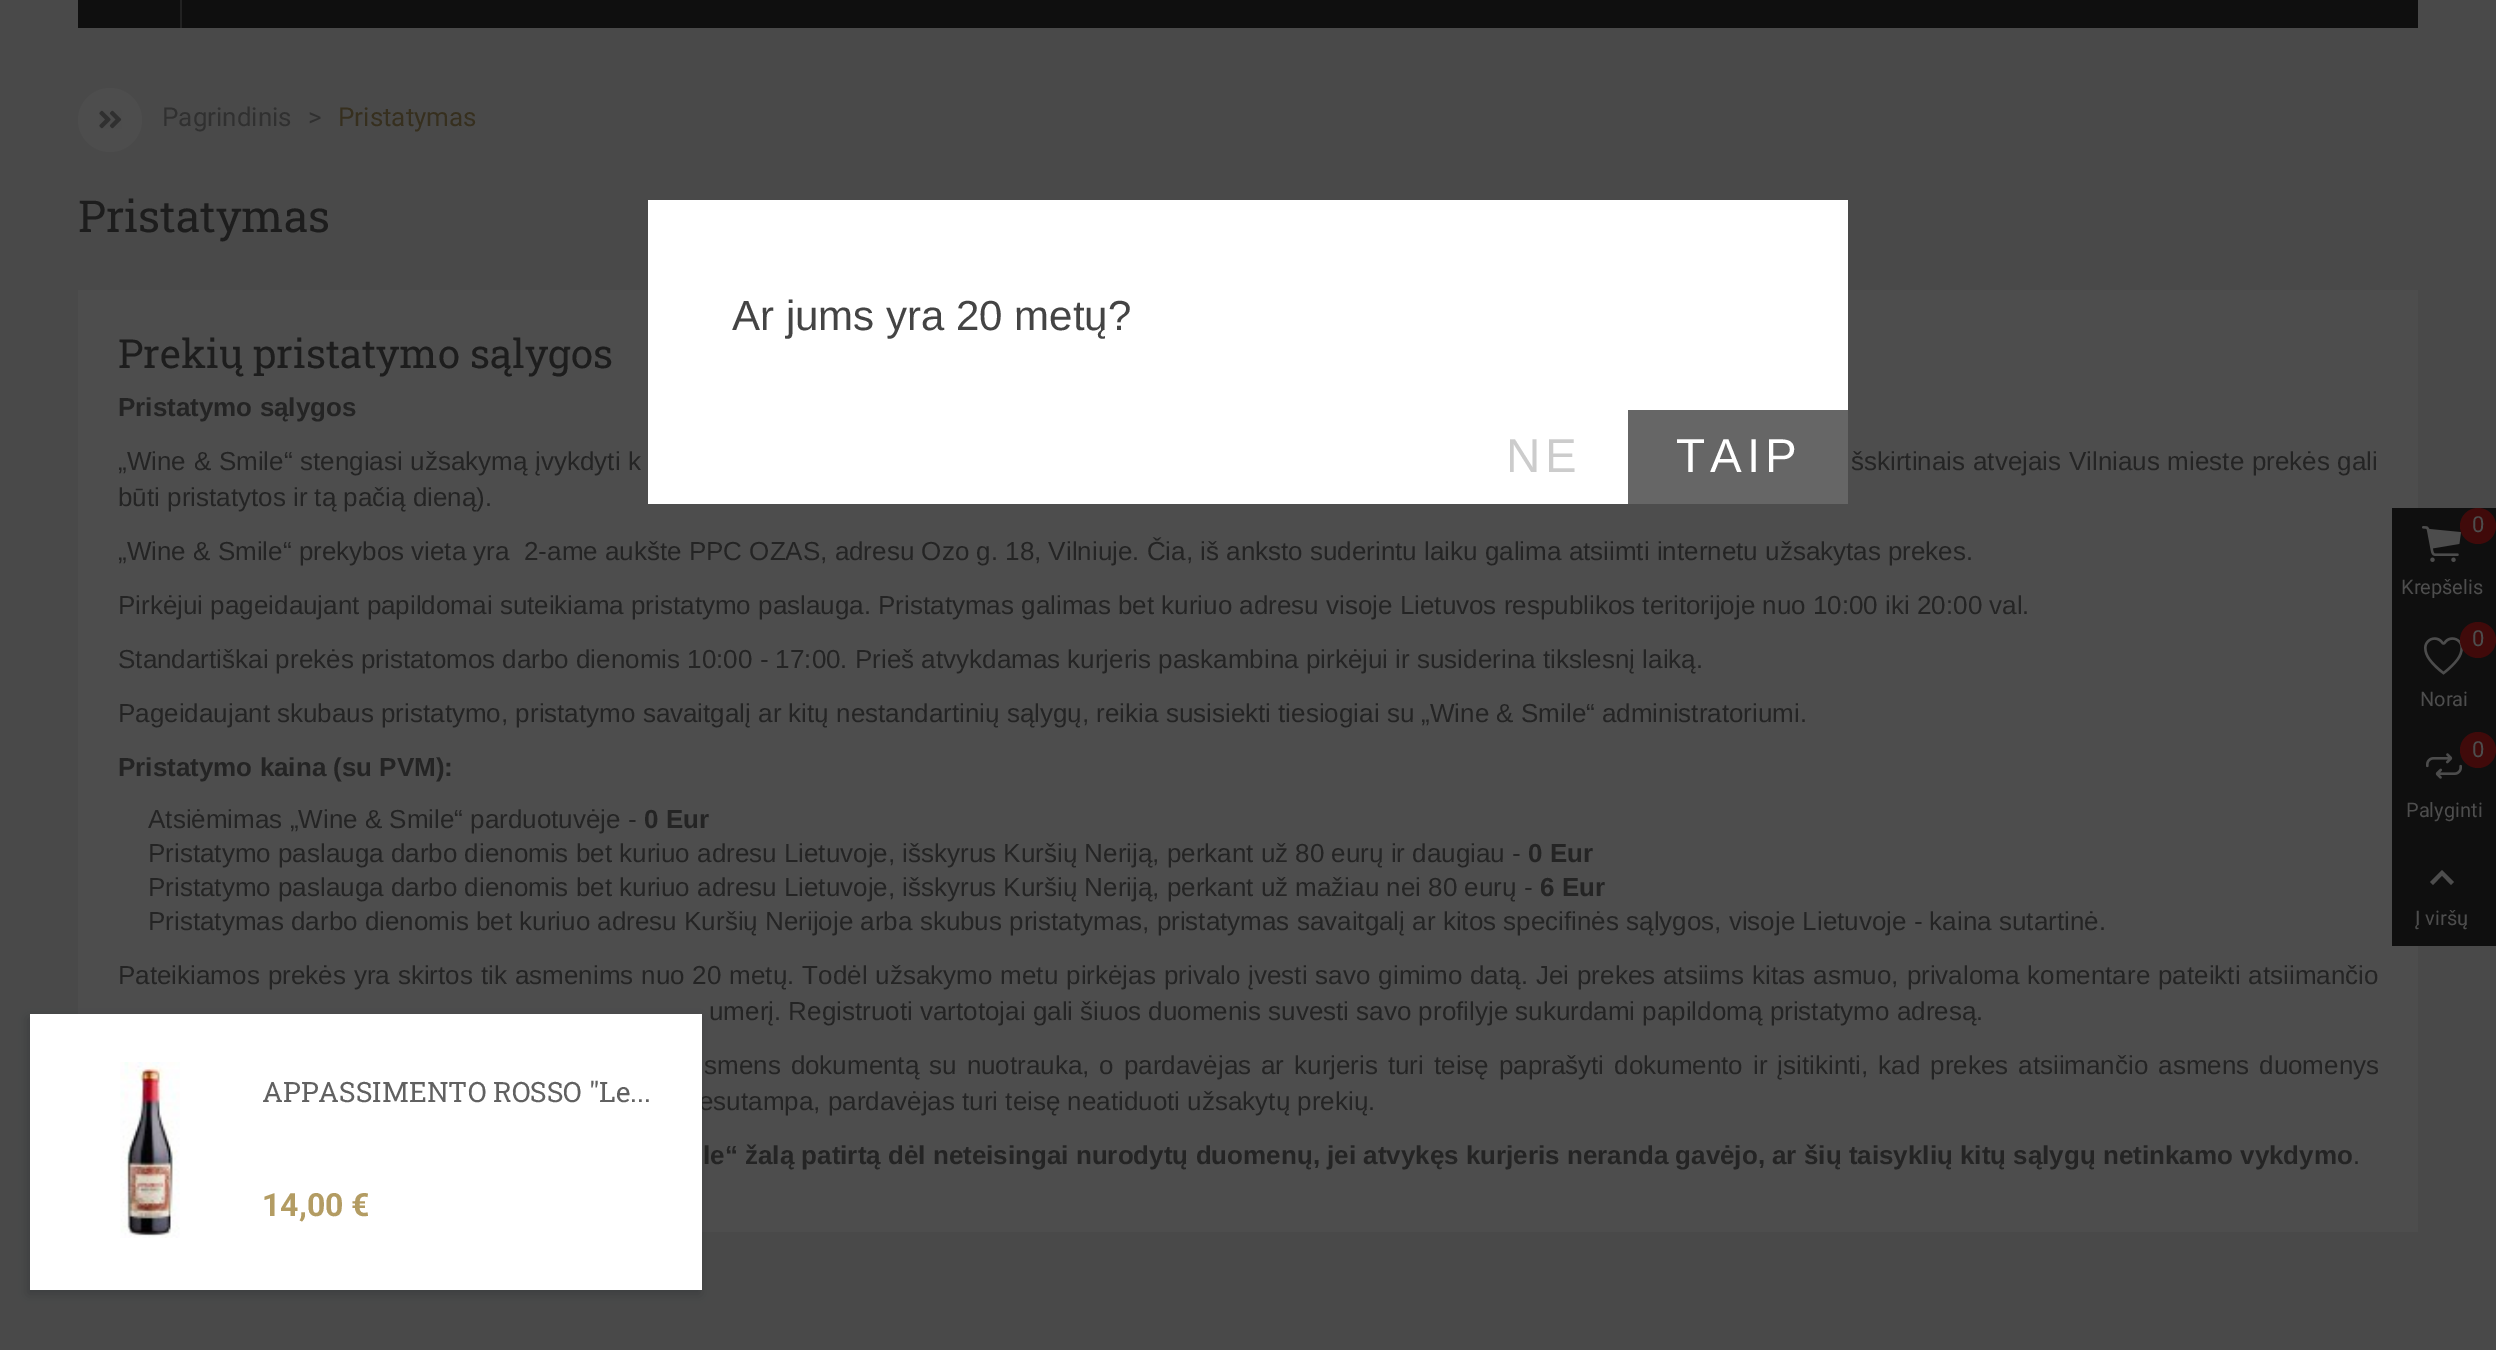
%!PS-Adobe-3.0
%%BoundingBox: 0 0 2496 1350
%%LanguageLevel: 3
%%Pages: 1
%%EndComments
%%BeginProlog
/setink { dup -16 bitshift 255 div exch dup -8 bitshift 255 and 255 div exch 255 and 255 div setrgbcolor } def
/usefont { [ exch dup neg 0 0 3 -1 roll 0 0 ] selectfont } def
/setalpha { dup .setfillconstantalpha .setstrokeconstantalpha } def
/disc { newpath 0 360 arc closepath } def
/rrect { 5 dict begin { /r /h /w /y /x } { exch def } forall
  x r add y moveto x w add y 2 copy h add r arct x w add y h add x 1 index r arct
  x y h add x y r arct x y 2 copy exch w add exch r arct closepath end } def
/softshadow { 12 dict begin { /a /b /q /h /w /y /x } { exch def } forall gsave /was 0 def
  9 -2 -9 { dup b mul 4 div /e exch def 1 sub .425 mul 2.718 exch exp 1 add a .99 .min exch div /now exch def
    1 1 now sub 1 was sub div sub setalpha /was now def
    w h .min e 2 mul add 0 gt { x e sub y e sub w e 2 mul add h e 2 mul add
      q e add b .6 mul add w h .min 2 div e add .min 0 .max rrect fill } if } for grestore end } def
/drawimage { 5 dict begin { /h /w /y /x /name } { exch def } forall
  gsave x y translate w h scale
  w h 8 [w 0 0 h 0 0] name (r) file false 3 colorimage grestore end } def
%%EndProlog
%%BeginSetup
<< /PageSize [2496 1350] /PageUsesTransparency true >> setpagedevice
%%EndSetup
%%Page: 1 1
0 .pushpdf14devicefilter
0 1350 translate 1 -1 scale
4 setmiterlimit
16#494949 setink
0 0 2496 1350 rectfill
16#0F0F0F setink
78 0 2340 28 rectfill
16#222222 setink
180 0 2 28 rectfill
16#4D4D4D setink
110 120 32 disc fill
(img1.raw) 99 110 23 19 drawimage
/Roboto-Regular 26 usefont
16#303030 setink
162 126 moveto (Pagrindinis) show
308 126 moveto (>) show
16#362F1E setink
338 126 moveto (Pristatymas) show
/RobotoSlab-Regular 44 usefont
16#1D1D1D setink
78 232 moveto (Pristatymas) show
16#4D4D4D setink
78 290 2340 942 rectfill
/RobotoSlab-Regular 40 usefont
16#1D1D1D setink
118 368 moveto (Prekių pristatymo sąlygos) show
/LiberationSans-Bold 26 usefont
16#242424 setink
118 416 moveto (Pristatymo sąlygos) show
/LiberationSans-Regular 26 usefont
118 470 moveto 0.5 0 32 („Wine & Smile“ stengiasi užsakymą įvykdyti k) widthshow
1851 470 moveto 0.5 0 32 (šskirtinais atvejais Vilniaus mieste prekės gali) widthshow
[
    [(būti pristatytos ir tą pačią dieną\).) 118 506]
    [(„Wine & Smile“ prekybos vieta yra  2-ame aukšte PPC OZAS, adresu Ozo g. 18, Vilniuje. Čia, iš anksto suderintu laiku galima atsiimti internetu užsakytas prekes.) 118 560]
    [(Pirkėjui pageidaujant papildomai suteikiama pristatymo paslauga. Pristatymas galimas bet kuriuo adresu visoje Lietuvos respublikos teritorijoje nuo 10:00 iki 20:00 val.) 118 614]
    [(Standartiškai prekės pristatomos darbo dienomis 10:00 - 17:00. Prieš atvykdamas kurjeris paskambina pirkėjui ir susiderina tikslesnį laiką.) 118 668]
    [(Pageidaujant skubaus pristatymo, pristatymo savaitgalį ar kitų nestandartinių sąlygų, reikia susisiekti tiesiogiai su „Wine & Smile“ administratoriumi.) 118 722]
] { aload pop moveto show } forall
/LiberationSans-Bold 26 usefont
118 776 moveto (Pristatymo kaina \(su PVM\):) show
/LiberationSans-Regular 26 usefont
148 828 moveto (Atsiėmimas „Wine & Smile“ parduotuvėje -) show
/LiberationSans-Bold 26 usefont
644 828 moveto (0 Eur) show
/LiberationSans-Regular 26 usefont
148 862 moveto (Pristatymo paslauga darbo dienomis bet kuriuo adresu Lietuvoje, išskyrus Kuršių Neriją, perkant už 80 eurų ir daugiau -) show
/LiberationSans-Bold 26 usefont
1528 862 moveto (0 Eur) show
/LiberationSans-Regular 26 usefont
148 896 moveto (Pristatymo paslauga darbo dienomis bet kuriuo adresu Lietuvoje, išskyrus Kuršių Neriją, perkant už mažiau nei 80 eurų -) show
/LiberationSans-Bold 26 usefont
1540 896 moveto (6 Eur) show
/LiberationSans-Regular 26 usefont
148 930 moveto (Pristatymas darbo dienomis bet kuriuo adresu Kuršių Nerijoje arba skubus pristatymas, pristatymas savaitgalį ar kitos specifinės sąlygos, visoje Lietuvoje - kaina sutartinė.) show
118 984 moveto 0.75 0 32 (Pateikiamos prekės yra skirtos tik asmenims nuo 20 metų. Todėl užsakymo metu pirkėjas privalo įvesti savo gimimo datą. Jei prekes atsiims kitas asmuo, privaloma komentare pateikti atsiimančio) widthshow
709 1020 moveto (umerį. Registruoti vartotojai gali šiuos duomenis suvesti savo profilyje sukurdami papildomą pristatymo adresą.) show
704 1074 moveto 2.75 0 32 (smens dokumentą su nuotrauka, o pardavėjas ar kurjeris turi teisę paprašyti dokumento ir įsitikinti, kad prekes atsiimančio asmens duomenys) widthshow
699 1110 moveto (esutampa, pardavėjas turi teisę neatiduoti užsakytų prekių.) show
/LiberationSans-Bold 26 usefont
703 1164 moveto (le“ žalą patirtą dėl neteisingai nurodytų duomenų, jei atvykęs kurjeris neranda gavėjo, ar šių taisyklių kitų sąlygų netinkamo vykdymo) show
/LiberationSans-Regular 26 usefont
2353 1164 moveto (.) show
16#0F0F0F setink
2392 508 104 438 rectfill
(img2.raw) 2422 526 39 36 drawimage
16#400A0A setink
2478 526 18 disc fill
/Roboto-Regular 22 usefont
16#4D4D4D setink
2472 532 moveto (0) show
/Roboto-Regular 20 usefont
2401 594 moveto (Krepšelis) show
(img3.raw) 2424 637 39 38 drawimage
16#400A0A setink
2478 640 18 disc fill
/Roboto-Regular 22 usefont
16#4D4D4D setink
2472 646 moveto (0) show
/Roboto-Regular 20 usefont
2420 706 moveto (Norai) show
(img4.raw) 2426 753 36 26 drawimage
16#400A0A setink
2478 750 18 disc fill
/Roboto-Regular 22 usefont
16#4D4D4D setink
2472 757 moveto (0) show
/Roboto-Regular 20 usefont
2406 817 moveto (Palyginti) show
2433 885 moveto 2430 882 lineto 2442 870 lineto 2454 882 lineto 2451 885 lineto 2442 875.5 lineto closepath fill
2415 925 moveto (Į viršų) show
16#1E2028 setink
28 1018 672 276 0 6 0.3 softshadow
16#FFFFFF setink
30 1014 672 276 rectfill
(img5.raw) 120 1062 60 176 drawimage
/RobotoSlab-Regular 28 usefont
16#616161 setink
262 1102 moveto (APPASSIMENTO ROSSO "Le...) show
/Roboto-Bold 32 usefont
16#B39C63 setink
262 1216 moveto (14,00 €) show
16#FFFFFF setink
648 200 1200 304 rectfill
/LiberationSans-Regular 42 usefont
16#444444 setink
732 330 moveto (Ar jums yra 20 metų?) show
/LiberationSans-Regular 47.5 usefont
16#CCCCCC setink
1506 472 moveto 5 0 (NE) ashow
16#666666 setink
1628 410 220 94 rectfill
16#FFFFFF setink
1676 472 moveto 5 0 (TAIP) ashow
.poppdf14devicefilter showpage
%%EOF
